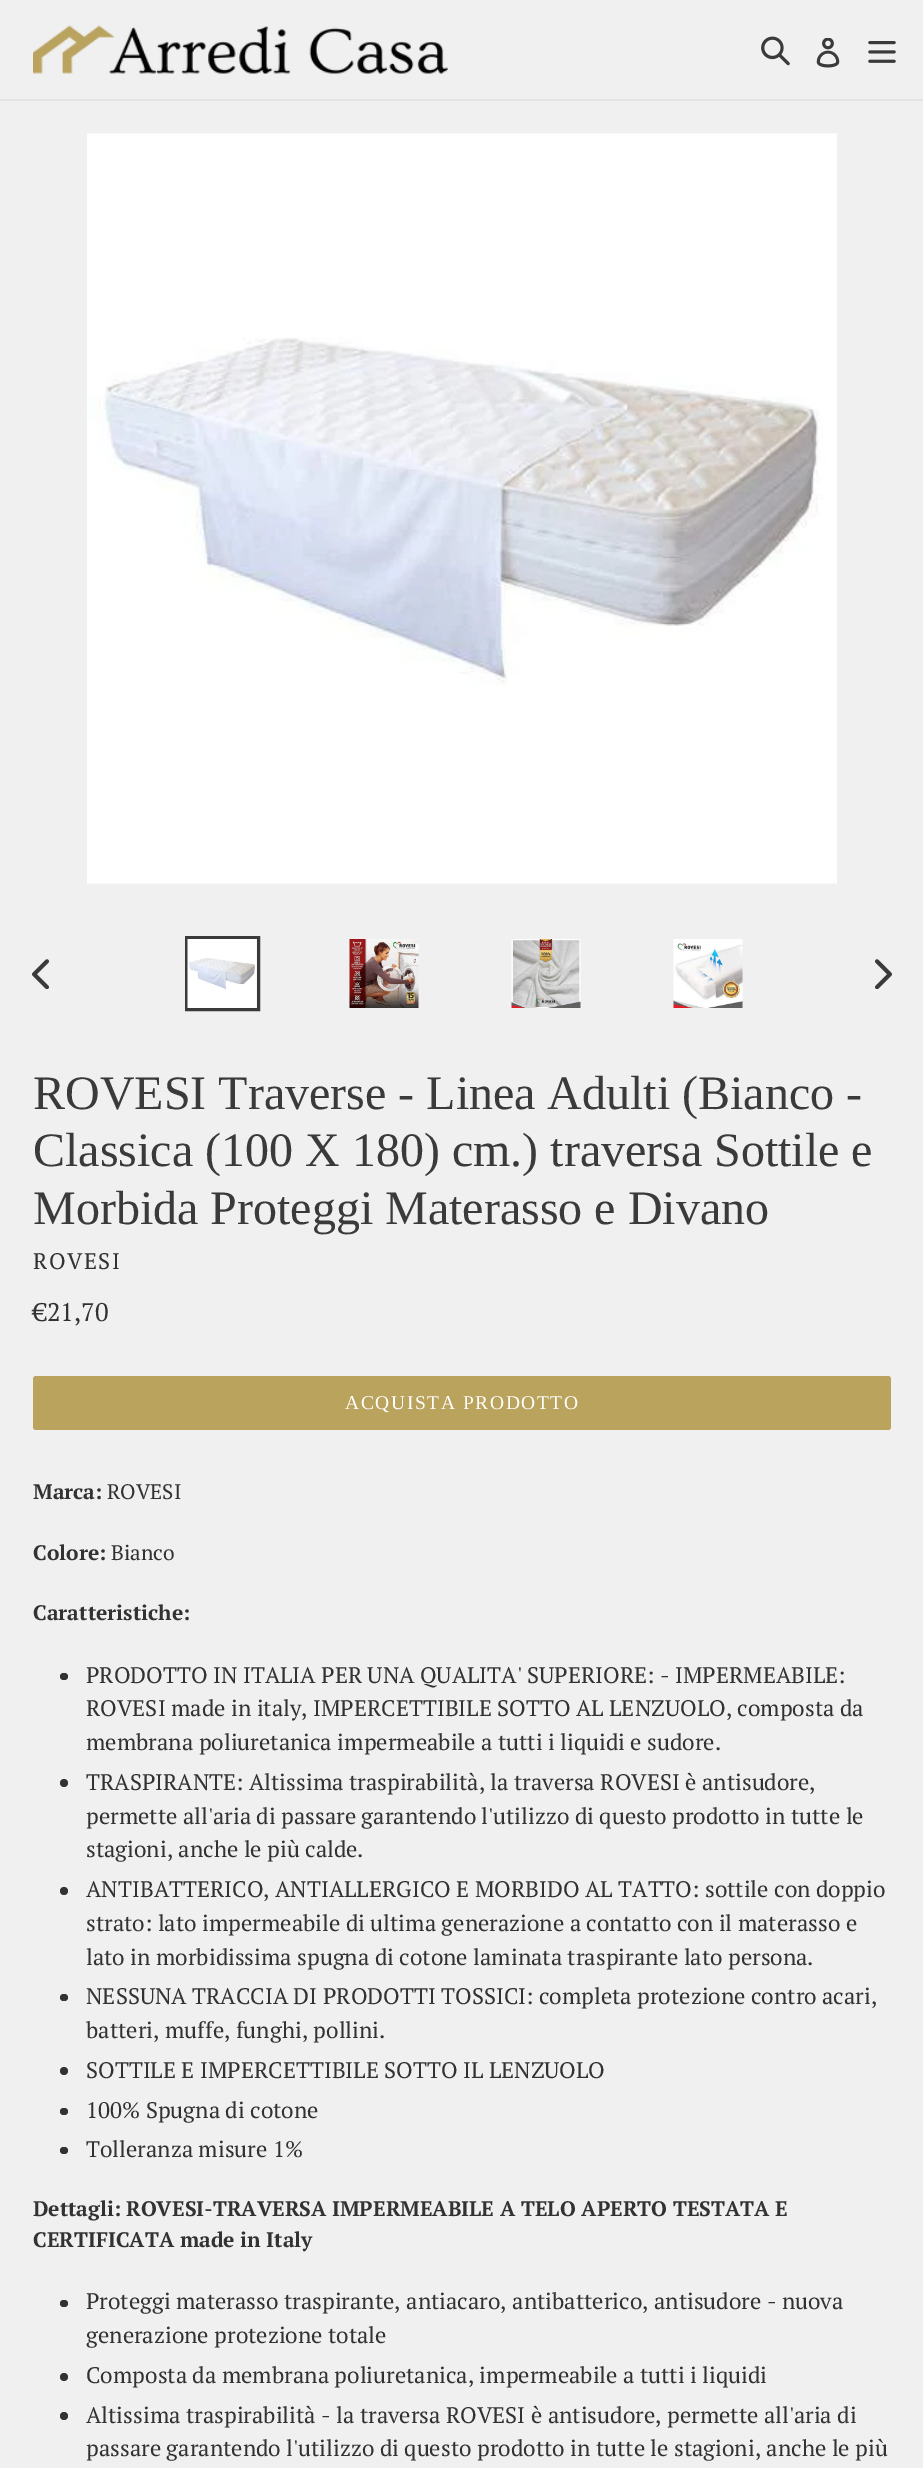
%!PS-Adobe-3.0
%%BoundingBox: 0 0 923 2468
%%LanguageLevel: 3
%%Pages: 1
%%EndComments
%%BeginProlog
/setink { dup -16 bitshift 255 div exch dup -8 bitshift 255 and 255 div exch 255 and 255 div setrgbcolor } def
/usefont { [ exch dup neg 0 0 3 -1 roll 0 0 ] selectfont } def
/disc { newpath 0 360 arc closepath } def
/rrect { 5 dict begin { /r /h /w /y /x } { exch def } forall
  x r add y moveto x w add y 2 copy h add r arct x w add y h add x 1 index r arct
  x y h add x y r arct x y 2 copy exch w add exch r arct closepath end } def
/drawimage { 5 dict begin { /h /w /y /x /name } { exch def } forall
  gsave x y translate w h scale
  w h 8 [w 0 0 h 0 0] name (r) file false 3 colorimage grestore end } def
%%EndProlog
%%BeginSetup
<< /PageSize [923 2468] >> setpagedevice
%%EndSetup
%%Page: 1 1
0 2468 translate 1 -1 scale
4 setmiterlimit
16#F0F0F0 setink
0 0 923 2468 rectfill
16#E4E4E4 setink
0 99 923 2 rectfill
(img1.raw) 33 25 415 49 drawimage
(img2.raw) 761 36 29 30 drawimage
(img3.raw) 816 38 24 30 drawimage
(img4.raw) 868 41 28 22 drawimage
(img5.raw) 87 133 750 751 drawimage
(img6.raw) 32 959 17 30 drawimage
16#3A3A3A setink
3 setlinewidth
186.5 937.5 72 72 rectstroke
(img7.raw) 187 939 70 69 drawimage
(img8.raw) 349 939 70 69 drawimage
(img9.raw) 511 939 70 69 drawimage
(img10.raw) 673 939 70 69 drawimage
(img11.raw) 875 959 17 30 drawimage
/LiberationSerif-Regular 48 usefont
[
    [(ROVESI Traverse - Linea Adulti \(Bianco -) 33 1109]
    [(Classica \(100 X 180\) cm.\) traversa Sottile e) 33 1166]
    [(Morbida Proteggi Materasso e Divano) 33 1224]
] { aload pop moveto show } forall
/PTSerif-Regular 22.5 usefont
16#333232 setink
33 1269 moveto 1.5 0 (ROVESI) ashow
/PTSerif-Regular 25.5 usefont
33 1321 moveto (€21,70) show
16#BAA35D setink
33 1376 858 54 3 rrect fill
/LiberationSerif-Regular 19.5 usefont
16#FFFFFF setink
345 1409 moveto 1.6 0 (ACQUISTA PRODOTTO) ashow
/PTSerif-Bold 21 usefont
16#333232 setink
33 1499 moveto (Marca:) show
/PTSerif-Regular 21 usefont
107 1499 moveto (ROVESI) show
/PTSerif-Bold 21 usefont
33 1560 moveto (Colore:) show
/PTSerif-Regular 21 usefont
111 1560 moveto (Bianco) show
/PTSerif-Bold 21 usefont
33 1620 moveto (Caratteristiche:) show
60 1673 8 7 3.5 rrect fill
/PTSerif-Regular 22.5 usefont
[
    [(PRODOTTO IN ITALIA PER UNA QUALITA' SUPERIORE: - IMPERMEABILE:) 86 1683]
    [(ROVESI made in italy, IMPERCETTIBILE SOTTO AL LENZUOLO, composta da) 86 1716]
    [(membrana poliuretanica impermeabile a tutti i liquidi e sudore.) 86 1750]
] { aload pop moveto show } forall
64 1783 4 disc fill
[
    [(TRASPIRANTE: Altissima traspirabilità, la traversa ROVESI è antisudore,) 86 1790]
    [(permette all'aria di passare garantendo l'utilizzo di questo prodotto in tutte le) 86 1824]
    [(stagioni, anche le più calde.) 86 1857]
] { aload pop moveto show } forall
64 1891 4 disc fill
[
    [(ANTIBATTERICO, ANTIALLERGICO E MORBIDO AL TATTO: sottile con doppio) 86 1897]
    [(strato: lato impermeabile di ultima generazione a contatto con il materasso e) 86 1931]
    [(lato in morbidissima spugna di cotone laminata traspirante lato persona.) 86 1965]
] { aload pop moveto show } forall
60 1994 8 7 3.5 rrect fill
86 2004 moveto (NESSUNA TRACCIA DI PRODOTTI TOSSICI: completa protezione contro acari,) show
86 2038 moveto (batteri, muffe, funghi, pollini.) show
64 2071 4 disc fill
86 2078 moveto (SOTTILE E IMPERCETTIBILE SOTTO IL LENZUOLO) show
60 2108 8 7 3.5 rrect fill
86 2118 moveto (100% Spugna di cotone) show
60 2147 8 7 3.5 rrect fill
86 2157 moveto (Tolleranza misure 1%) show
/PTSerif-Bold 21 usefont
[
    [(Dettagli:) 33 2216]
    [(ROVESI-TRAVERSA IMPERMEABILE A TELO APERTO TESTATA E) 126 2216]
    [(CERTIFICATA made in Italy) 33 2247]
] { aload pop moveto show } forall
60 2300 8 7 3.5 rrect fill
/PTSerif-Regular 22.5 usefont
86 2309 moveto (Proteggi materasso traspirante, antiacaro, antibatterico, antisudore - nuova) show
86 2343 moveto (generazione protezione totale) show
64 2377 4 disc fill
86 2383 moveto (Composta da membrana poliuretanica, impermeabile a tutti i liquidi) show
64 2416 4 disc fill
86 2423 moveto (Altissima traspirabilità - la traversa ROVESI è antisudore, permette all'aria di) show
86 2456 moveto (passare garantendo l'utilizzo di questo prodotto in tutte le stagioni, anche le più) show
showpage
%%EOF
